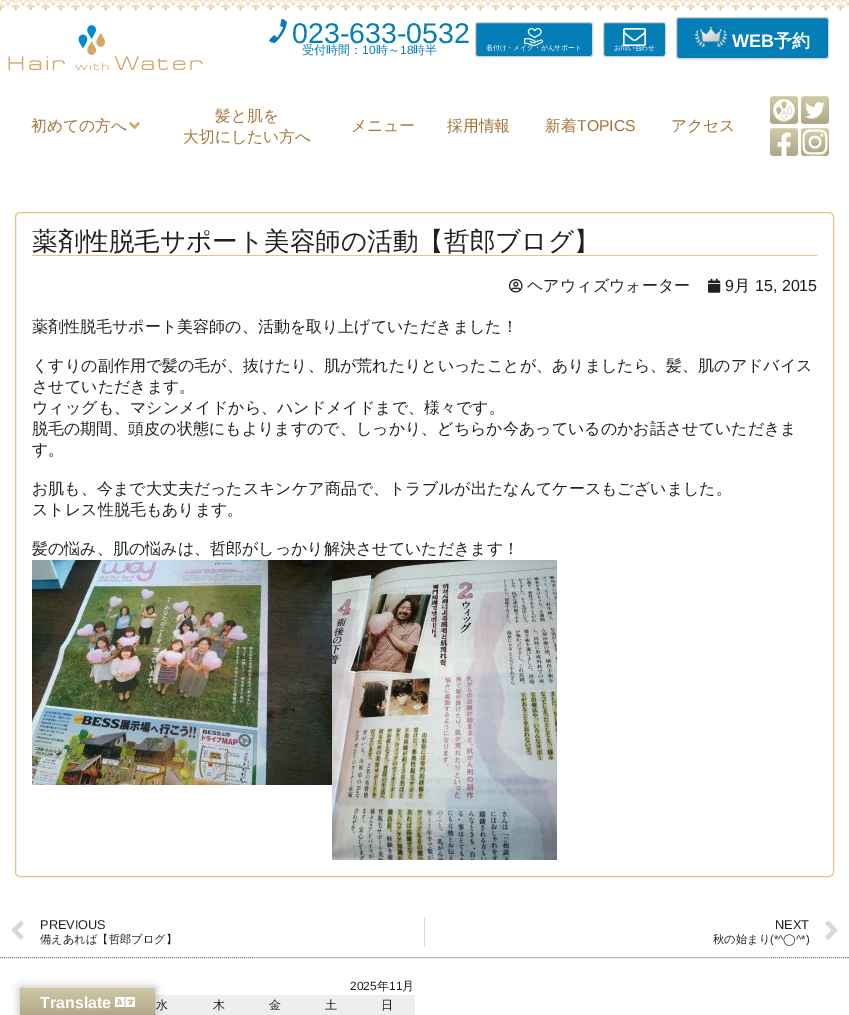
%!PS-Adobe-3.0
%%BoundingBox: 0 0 849 1015
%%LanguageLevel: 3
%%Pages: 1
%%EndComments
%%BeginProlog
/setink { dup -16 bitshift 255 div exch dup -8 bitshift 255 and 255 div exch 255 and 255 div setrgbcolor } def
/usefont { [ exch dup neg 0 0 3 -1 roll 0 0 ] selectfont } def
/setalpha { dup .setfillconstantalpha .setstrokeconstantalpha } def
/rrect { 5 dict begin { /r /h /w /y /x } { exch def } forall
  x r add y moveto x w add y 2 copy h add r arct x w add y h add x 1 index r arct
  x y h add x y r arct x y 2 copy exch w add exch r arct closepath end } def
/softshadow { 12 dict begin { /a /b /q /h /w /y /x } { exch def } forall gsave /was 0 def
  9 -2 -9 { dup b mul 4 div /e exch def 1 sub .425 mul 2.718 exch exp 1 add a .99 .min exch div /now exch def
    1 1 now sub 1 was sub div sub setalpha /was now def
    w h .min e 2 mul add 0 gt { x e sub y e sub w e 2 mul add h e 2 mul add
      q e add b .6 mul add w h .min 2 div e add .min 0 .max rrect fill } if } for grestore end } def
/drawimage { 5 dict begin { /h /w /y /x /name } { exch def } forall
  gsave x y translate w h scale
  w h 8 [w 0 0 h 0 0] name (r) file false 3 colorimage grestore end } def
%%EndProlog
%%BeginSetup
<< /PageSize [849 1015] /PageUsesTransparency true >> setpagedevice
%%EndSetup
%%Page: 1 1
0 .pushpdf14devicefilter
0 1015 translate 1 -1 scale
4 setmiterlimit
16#FFFFFF setink
0 0 849 1015 rectfill
(img1.raw) 0 0 849 11 drawimage
(img2.raw) 269 19 18 24 drawimage
/LiberationSans-Regular 28.5 usefont
16#047EB7 setink
292 43 moveto (023-633-0532) show
/WenQuanYiZenHei-Medium 12 usefont
302 54 moveto (受付時間：) show
/LiberationSans-Regular 12 usefont
362 54 moveto (10) show
/WenQuanYiZenHei-Medium 12 usefont
376 54 moveto (時～) show
/LiberationSans-Regular 12 usefont
400 54 moveto (18) show
/WenQuanYiZenHei-Medium 12 usefont
413 54 moveto (時半) show
475.5 22.5 117 34 2.5 rrect gsave fill grestore
16#D2D2D2 setink
stroke
(img3.raw) 524 28 19 18 drawimage
/WenQuanYiZenHei-Medium 6.75 usefont
16#FFFFFF setink
486 50 moveto (着付け・メイク・がんサポート) show
16#047EB7 setink
603.5 22.5 62 34 2.5 rrect gsave fill grestore
16#D2D2D2 setink
stroke
(img4.raw) 623 28 23 18 drawimage
16#FFFFFF setink
614 50 moveto (お問い合わせ) show
16#047EB7 setink
676.5 17.5 152 41 2.5 rrect gsave fill grestore
16#D2D2D2 setink
stroke
(img5.raw) 695 27 32 20 drawimage
/LiberationSans-Bold 18 usefont
16#FFFFFF setink
732 47 moveto (WEB) show
/WenQuanYiZenHei-Bold 18 usefont
774 47 moveto (予約) show
/WenQuanYiZenHei-Medium 15.75 usefont
16#A57335 setink
31 131 moveto (初めての方へ) show
(img6.raw) 129 122 11 7 drawimage
[
    [(髪と肌を) 215 121]
    [(大切にしたい方へ) 183 142]
    [(メニュー) 351 131]
    [(採用情報) 447 131]
    [(新着) 545 131]
] { aload pop moveto show } forall
/LiberationSans-Regular 15.75 usefont
577 131 moveto (TOPICS) show
/WenQuanYiZenHei-Medium 15.75 usefont
671 131 moveto (アクセス) show
(img7.raw) 770 96 28 28 drawimage
(img8.raw) 801 96 28 28 drawimage
(img9.raw) 770 128 28 28 drawimage
(img10.raw) 801 128 28 28 drawimage
(img11.raw) 8 25 195 45 drawimage
16#E5C580 setink
15.5 212.5 818 664 4.5 rrect stroke
32 255 785 1 rectfill
/WenQuanYiZenHei-Medium 25.6 usefont
16#231F20 setink
32 250 moveto (薬剤性脱毛サポート美容師の活動【哲郎ブログ】) show
(img12.raw) 509 279 14 14 drawimage
/WenQuanYiZenHei-Medium 16 usefont
527 291 moveto (ヘアウィズウォーター) show
(img13.raw) 708 278 13 15 drawimage
/LiberationSans-Regular 16 usefont
725 291 moveto (9) show
/WenQuanYiZenHei-Medium 16 usefont
734 291 moveto (月) show
/LiberationSans-Regular 16 usefont
755 291 moveto (15, 2015) show
/WenQuanYiZenHei-Medium 16 usefont
[
    [(薬剤性脱毛サポート美容師の、活動を取り上げていただきました！) 32 332]
    [(くすりの副作用で髪の毛が、抜けたり、肌が荒れたりといったことが、ありましたら、髪、肌のアドバイス) 32 371]
    [(させていただきます。) 32 392]
    [(ウィッグも、マシンメイドから、ハンドメイドまで、様々です。) 32 413]
    [(脱毛の期間、頭皮の状態にもよりますので、しっかり、どちらか今あっているのかお話させていただきま) 32 434]
    [(す。) 32 455]
    [(お肌も、今まで大丈夫だったスキンケア商品で、トラブルが出たなんてケースもございました。) 32 494]
    [(ストレス性脱毛もあります。) 32 515]
    [(髪の悩み、肌の悩みは、哲郎がしっかり解決させていただきます！) 32 554]
] { aload pop moveto show } forall
(img14.raw) 32 560 300 225 drawimage
(img15.raw) 332 560 225 300 drawimage
(img16.raw) 11 921 13 19 drawimage
/LiberationSans-Regular 12.75 usefont
40 929 moveto (PREVIOUS) show
/WenQuanYiZenHei-Medium 11.25 usefont
40 943 moveto (備えあれば【哲郎ブログ】) show
16#D5D8DC setink
424 917 1 30 rectfill
/LiberationSans-Regular 12.75 usefont
16#231F20 setink
775 929 moveto (NEXT) show
/WenQuanYiZenHei-Medium 11.25 usefont
713 943 moveto (秋の始まり) show
/LiberationSans-Regular 11.25 usefont
770 943 moveto (\(*^) show
/DejaVuSans-Regular 11.25 usefont
783 943 moveto (◯) show
/LiberationSans-Regular 11.25 usefont
796 943 moveto (^*\)) show
(img17.raw) 825 921 13 19 drawimage
16#8D8D8D setink
[1 1] 0 setdash
0 957.5 moveto 849 957.5 lineto stroke
/LiberationSans-Regular 12 usefont
16#231F20 setink
350 990 moveto (2025) show
/WenQuanYiZenHei-Medium 12 usefont
377 990 moveto (年) show
/LiberationSans-Regular 12 usefont
389 990 moveto (11) show
/WenQuanYiZenHei-Medium 12 usefont
402 990 moveto (月) show
16#EEEEEE setink
155 995 260 20 rectfill
16#231F20 setink
[
    [(水) 156 1009]
    [(木) 213 1009]
    [(金) 269 1009]
    [(土) 325 1009]
    [(日) 381 1009]
] { aload pop moveto show } forall
16#000000 setink
20 988 135 27 0 4.5 0.3 softshadow
gsave 20 988 moveto 155 988 lineto 155 1015 lineto 20 1015 lineto closepath clip newpath
<< /ShadingType 2 /ColorSpace /DeviceRGB /Coords [88 988 88 1015] /Extend [true true] /Function << /FunctionType 2 /Domain [0 1] /C0 [0.804 0.78 0.639] /C1 [0.698 0.663 0.541] /N 1 >> >> shfill grestore
/LiberationSans-Bold 16 usefont
16#FFFFFF setink
40 1008 moveto (Translate) show
(img18.raw) 115 997 20 10 drawimage
.poppdf14devicefilter showpage
%%EOF
